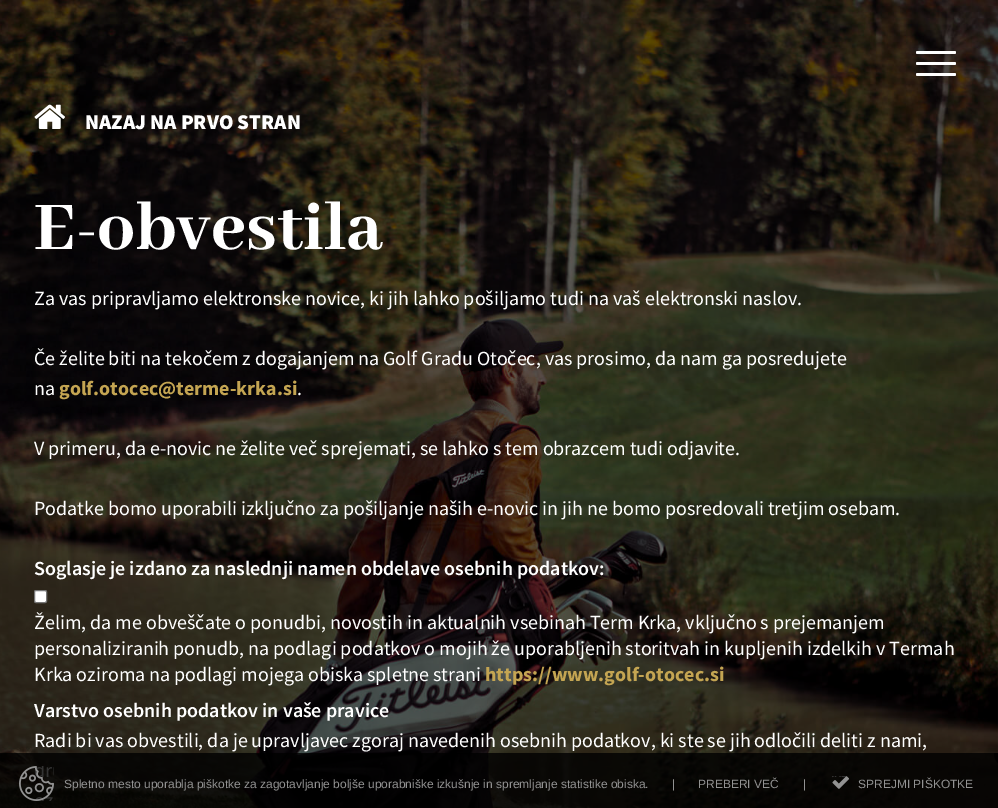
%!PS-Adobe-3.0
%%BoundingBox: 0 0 998 808
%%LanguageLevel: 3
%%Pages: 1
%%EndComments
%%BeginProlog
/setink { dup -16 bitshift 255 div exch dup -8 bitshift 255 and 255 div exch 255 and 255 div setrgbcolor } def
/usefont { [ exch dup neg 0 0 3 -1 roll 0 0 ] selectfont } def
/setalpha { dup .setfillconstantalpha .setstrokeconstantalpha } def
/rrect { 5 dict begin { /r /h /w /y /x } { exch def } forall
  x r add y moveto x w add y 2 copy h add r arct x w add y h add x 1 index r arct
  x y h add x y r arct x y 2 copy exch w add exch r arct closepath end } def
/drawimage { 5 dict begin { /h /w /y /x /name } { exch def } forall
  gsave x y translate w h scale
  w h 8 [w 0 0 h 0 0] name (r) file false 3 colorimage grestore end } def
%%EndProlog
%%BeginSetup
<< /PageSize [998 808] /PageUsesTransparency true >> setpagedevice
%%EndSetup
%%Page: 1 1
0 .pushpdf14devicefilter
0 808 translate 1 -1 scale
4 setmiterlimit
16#FFFFFF setink
0 0 998 808 rectfill
(img1.raw) 0 0 998 808 drawimage
916 51 40 3 1.5 rrect fill
916 62 40 3 1.5 rrect fill
916 73 40 3 1.5 rrect fill
(img2.raw) 34 104 31 25 drawimage
/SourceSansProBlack-Black 21 usefont
85 129 moveto (NAZAJ NA PRVO STRAN) show
/AbhayaLibreExtraBold-ExtraBold 75 usefont
34 249 moveto (E-obvestila) show
/SourceSansPro-Regular 20 usefont
[
    [(Za vas pripravljamo elektronske novice, ki jih lahko pošiljamo tudi na vaš elektronski naslov.) 34 305]
    [(Če želite biti na tekočem z dogajanjem na Golf Gradu Otočec, vas prosimo, da nam ga posredujete) 34 365]
    [(na) 34 395]
] { aload pop moveto show } forall
/SourceSansPro-Bold 20 usefont
16#C4A552 setink
59 395 moveto (golf.otocec@terme-krka.si) show
/SourceSansPro-Regular 20 usefont
16#FFFFFF setink
[
    [(.) 297 395]
    [(V primeru, da e-novic ne želite več sprejemati, se lahko s tem obrazcem tudi odjavite.) 34 455]
    [(Podatke bomo uporabili izključno za pošiljanje naših e-novic in jih ne bomo posredovali tretjim osebam.) 34 515]
] { aload pop moveto show } forall
/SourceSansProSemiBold-SemiBold 20 usefont
34 575 moveto (Soglasje je izdano za naslednji namen obdelave osebnih podatkov:) show
34.5 590.5 12 12 1.5 rrect gsave fill grestore
16#767676 setink
stroke
/SourceSansPro-Regular 20 usefont
16#FFFFFF setink
[
    [(Želim, da me obveščate o ponudbi, novostih in aktualnih vsebinah Term Krka, vključno s prejemanjem) 34 629]
    [(personaliziranih ponudb, na podlagi podatkov o mojih že uporabljenih storitvah in kupljenih izdelkih v Termah) 34 655]
    [(Krka oziroma na podlagi mojega obiska spletne strani) 34 681]
] { aload pop moveto show } forall
/SourceSansPro-Bold 20 usefont
16#C4A552 setink
485 681 moveto (https://www.golf-otocec.si) show
/SourceSansProSemiBold-SemiBold 20 usefont
16#FFFFFF setink
34 717 moveto (Varstvo osebnih podatkov in vaše pravice) show
/SourceSansPro-Regular 20 usefont
34 747 moveto (Radi bi vas obvestili, da je upravljavec zgoraj navedenih osebnih podatkov, ki ste se jih odločili deliti z nami,) show
0.8 setalpha
16#000000 setink
0 753 998 55 rectfill
1 setalpha
(img3.raw) 994 753 4 10 drawimage
(img4.raw) 19 766 35 35 drawimage
/LiberationSans-Regular 12 usefont
16#929292 setink
[
    [(Spletno mesto uporablja piškotke za zagotavljanje boljše uporabniške izkušnje in spremljanje statistike obiska.) 64 788]
    [(|) 672 788]
    [(PREBERI VEČ) 698 788]
    [(|) 803 788]
] { aload pop moveto show } forall
(img5.raw) 832 776 17 13 drawimage
858 788 moveto (SPREJMI PIŠKOTKE) show
.poppdf14devicefilter showpage
%%EOF
